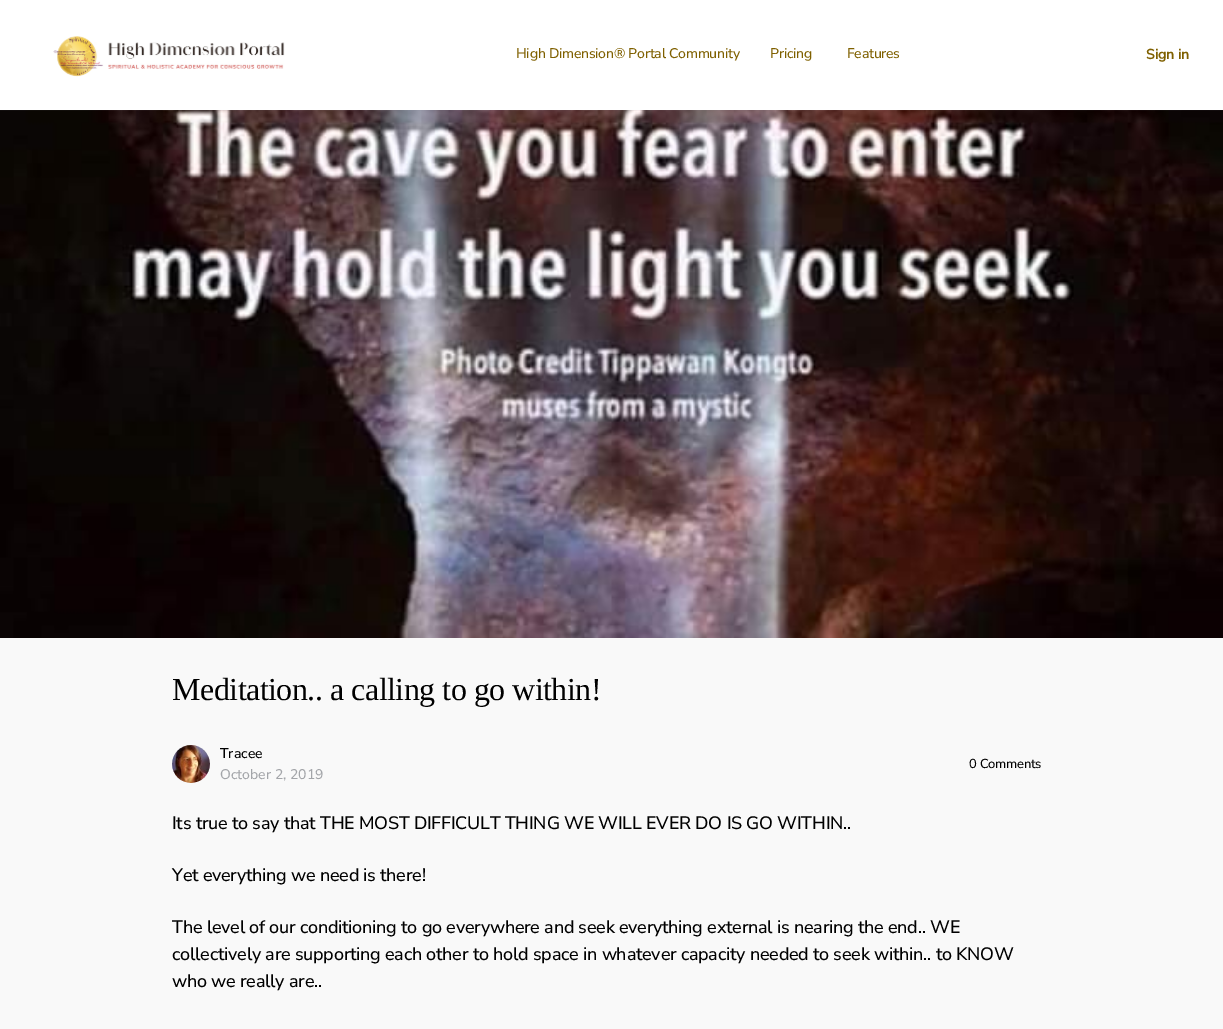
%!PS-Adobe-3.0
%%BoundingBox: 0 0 1223 1029
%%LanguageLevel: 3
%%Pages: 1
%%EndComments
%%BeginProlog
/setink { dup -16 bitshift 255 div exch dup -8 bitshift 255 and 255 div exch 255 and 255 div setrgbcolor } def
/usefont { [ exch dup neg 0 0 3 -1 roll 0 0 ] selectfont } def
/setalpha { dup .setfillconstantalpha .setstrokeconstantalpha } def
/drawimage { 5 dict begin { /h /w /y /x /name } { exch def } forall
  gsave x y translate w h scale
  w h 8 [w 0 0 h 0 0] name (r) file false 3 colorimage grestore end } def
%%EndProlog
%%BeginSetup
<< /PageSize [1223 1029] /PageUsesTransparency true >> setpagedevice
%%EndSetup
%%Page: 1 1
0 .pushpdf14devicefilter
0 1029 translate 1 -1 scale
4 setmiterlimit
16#F9F9F9 setink
0 0 1223 1029 rectfill
(img2.raw) 0 110 1223 528 drawimage
0.05 setalpha
16#8B8D9D setink
0 110 1223 1 rectfill
1 setalpha
16#FFFFFF setink
0 0 1223 110 rectfill
(img1.raw) 53 36 232 41 drawimage
/NunitoSans-ExtraLight 14 usefont
16#7F6000 setink
516 58 moveto -0.24 0 (High Dimension® Portal Community) ashow
770 58 moveto -0.24 0 (Pricing) ashow
847 58 moveto -0.24 0 (Features) ashow
/NunitoSans-Bold 14 usefont
1146 59 moveto (Sign in) show
/LiberationSerif-Regular 32 usefont
16#000000 setink
172 700 moveto -0.5 0 (Meditation.. a calling to go within!) ashow
(img3.raw) 172 745 38 38 drawimage
/NunitoSans-ExtraLight 14 usefont
220 758 moveto (Tracee) show
16#A3A5A9 setink
220 779 moveto (October 2, 2019) show
/NunitoSans-ExtraLight 13 usefont
16#000000 setink
969 768 moveto -0.25 0 (0 Comments) ashow
/NunitoSans-ExtraLight 18 usefont
172 829 moveto -0.24 0 (Its true to say that THE MOST DIFFICULT THING WE WILL EVER DO IS GO WITHIN..) ashow
172 881 moveto -0.24 0 (Yet everything we need is there!) ashow
172 933 moveto -0.24 0 (The level of our conditioning to go everywhere and seek everything external is nearing the end.. WE) ashow
172 960 moveto -0.24 0 (collectively are supporting each other to hold space in whatever capacity needed to seek within.. to KNOW) ashow
172 987 moveto -0.24 0 (who we really are..) ashow
.poppdf14devicefilter showpage
%%EOF
